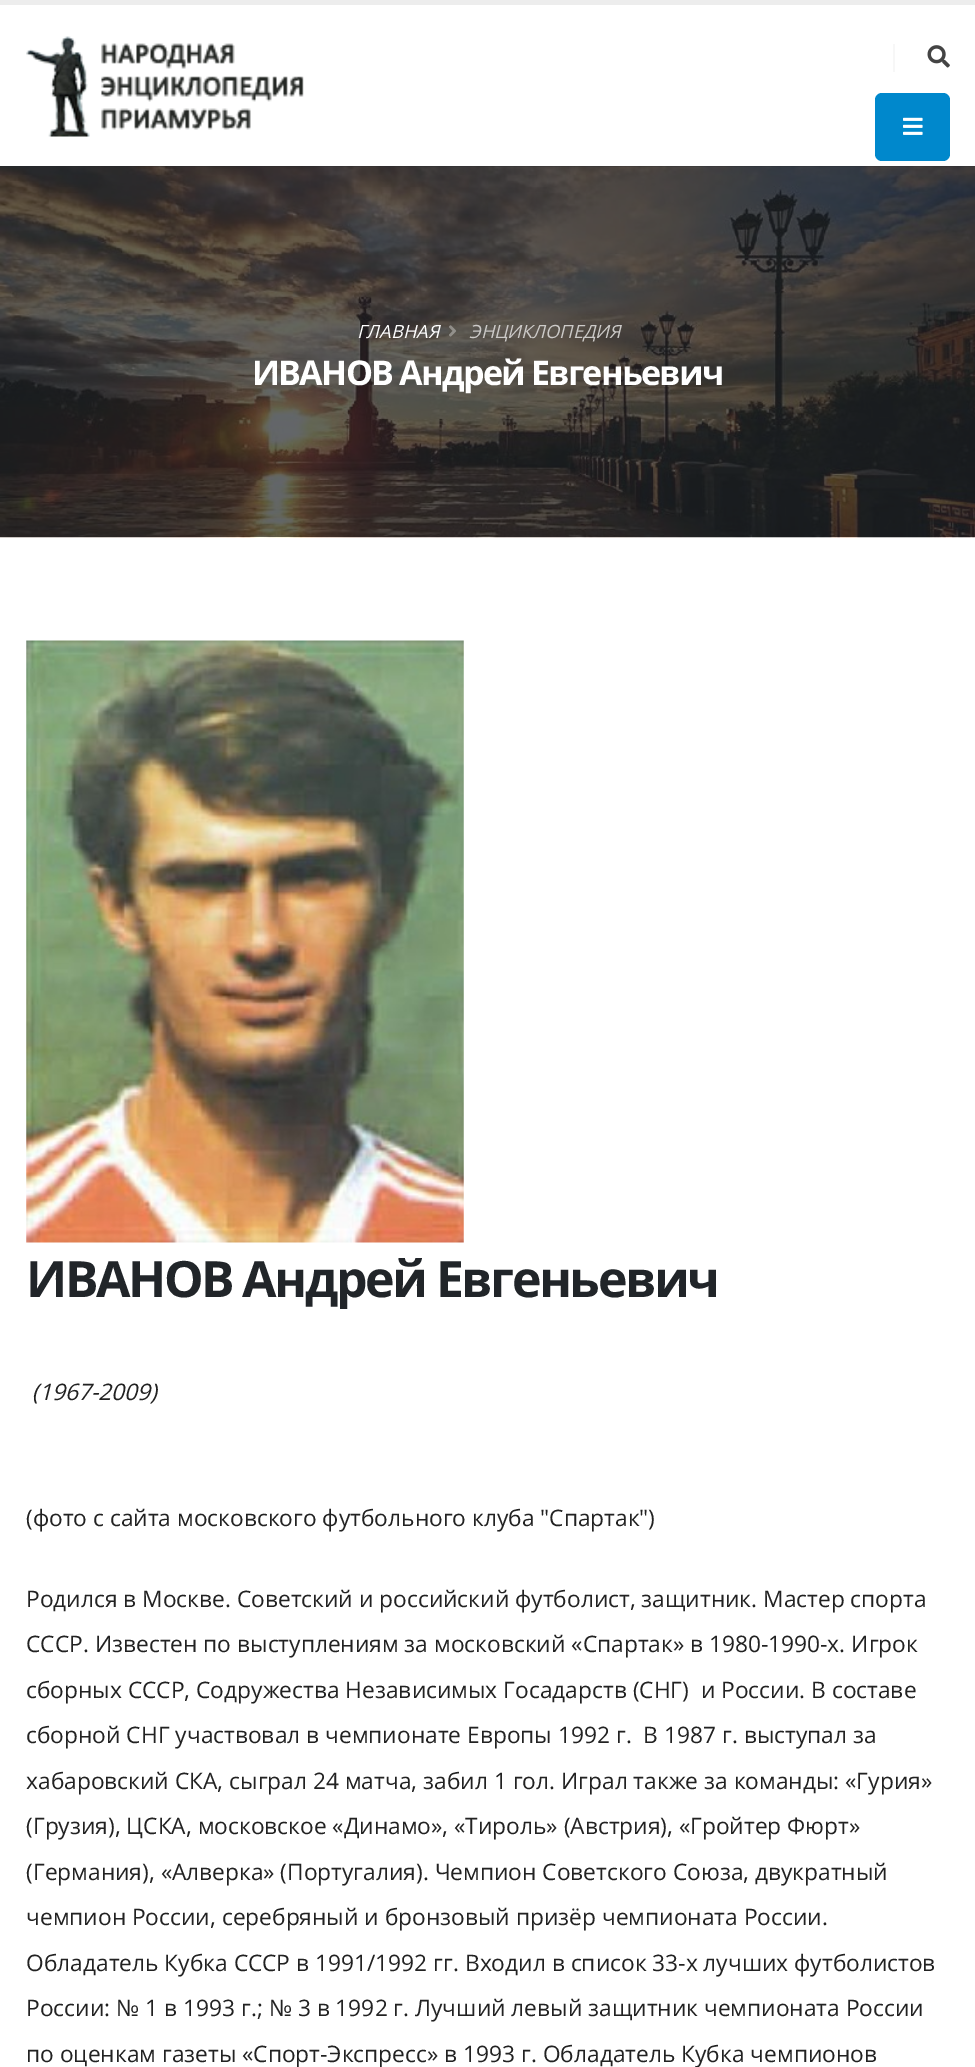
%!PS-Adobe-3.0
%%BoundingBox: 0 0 975 2067
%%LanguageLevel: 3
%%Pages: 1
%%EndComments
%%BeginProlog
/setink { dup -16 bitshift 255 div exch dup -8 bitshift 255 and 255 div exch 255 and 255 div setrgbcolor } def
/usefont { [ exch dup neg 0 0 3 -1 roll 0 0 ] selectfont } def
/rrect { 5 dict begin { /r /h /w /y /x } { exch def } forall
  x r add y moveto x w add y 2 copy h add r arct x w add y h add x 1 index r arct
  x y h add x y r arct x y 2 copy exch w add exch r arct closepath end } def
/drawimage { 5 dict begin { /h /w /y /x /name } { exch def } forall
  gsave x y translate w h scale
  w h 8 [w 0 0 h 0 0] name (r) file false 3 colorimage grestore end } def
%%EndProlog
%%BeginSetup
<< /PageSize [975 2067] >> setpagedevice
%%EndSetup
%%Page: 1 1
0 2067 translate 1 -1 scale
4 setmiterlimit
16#FFFFFF setink
0 0 975 2067 rectfill
16#EDEDED setink
0 0 975 5 rectfill
(img1.raw) 26 36 278 101 drawimage
16#F7F7F7 setink
893 44 2 28 rectfill
(img2.raw) 927 45 23 23 drawimage
16#0088CC setink
875 93 75 68 7 rrect fill
(img3.raw) 903 117 20 18 drawimage
(img4.raw) 0 166 975 372 drawimage
/OpenSans-Italic 18.25 usefont
16#FFFFFF setink
357 338 moveto (ГЛАВНАЯ) show
(img5.raw) 449 325 8 12 drawimage
16#CCCAC8 setink
469 338 moveto (ЭНЦИКЛОПЕДИЯ) show
/OpenSans-Bold 34.1 usefont
16#FFFFFF setink
252 385 moveto -1.75 0 (ИВАНОВ Андрей Евгеньевич) ashow
(img6.raw) 26 640 438 603 drawimage
/OpenSans-Bold 50 usefont
16#212529 setink
26 1297 moveto -2.5 0 (ИВАНОВ Андрей Евгеньевич) ashow
/OpenSans-Italic 22.75 usefont
16#222222 setink
32 1400 moveto (\(1967-2009\)) show
/OpenSans-Regular 22.75 usefont
[
    [(\(фото с сайта московского футбольного клуба "Спартак"\)) 26 1526]
    [(Родился в Москве. Советский и российский футболист, защитник. Мастер спорта) 26 1607]
    [(СССР. Известен по выступлениям за московский «Спартак» в 1980-1990-х. Игрок) 26 1652]
    [(сборных СССР, Содружества Независимых Госадарств \(СНГ\)  и России. В составе) 26 1698]
    [(сборной СНГ участвовал в чемпионате Европы 1992 г.  В 1987 г. выступал за) 26 1743]
    [(хабаровский СКА, сыграл 24 матча, забил 1 гол. Играл также за команды: «Гурия») 26 1789]
    [(\(Грузия\), ЦСКА, московское «Динамо», «Тироль» \(Австрия\), «Гройтер Фюрт») 26 1834]
    [(\(Германия\), «Алверка» \(Португалия\). Чемпион Советского Союза, двукратный) 26 1880]
    [(чемпион России, серебряный и бронзовый призёр чемпионата России.) 26 1925]
    [(Обладатель Кубка СССР в 1991/1992 гг. Входил в список 33-х лучших футболистов) 26 1971]
    [(России: № 1 в 1993 г.; № 3 в 1992 г. Лучший левый защитник чемпионата России) 26 2016]
    [(по оценкам газеты «Спорт-Экспресс» в 1993 г. Обладатель Кубка чемпионов) 26 2062]
] { aload pop moveto show } forall
showpage
%%EOF
